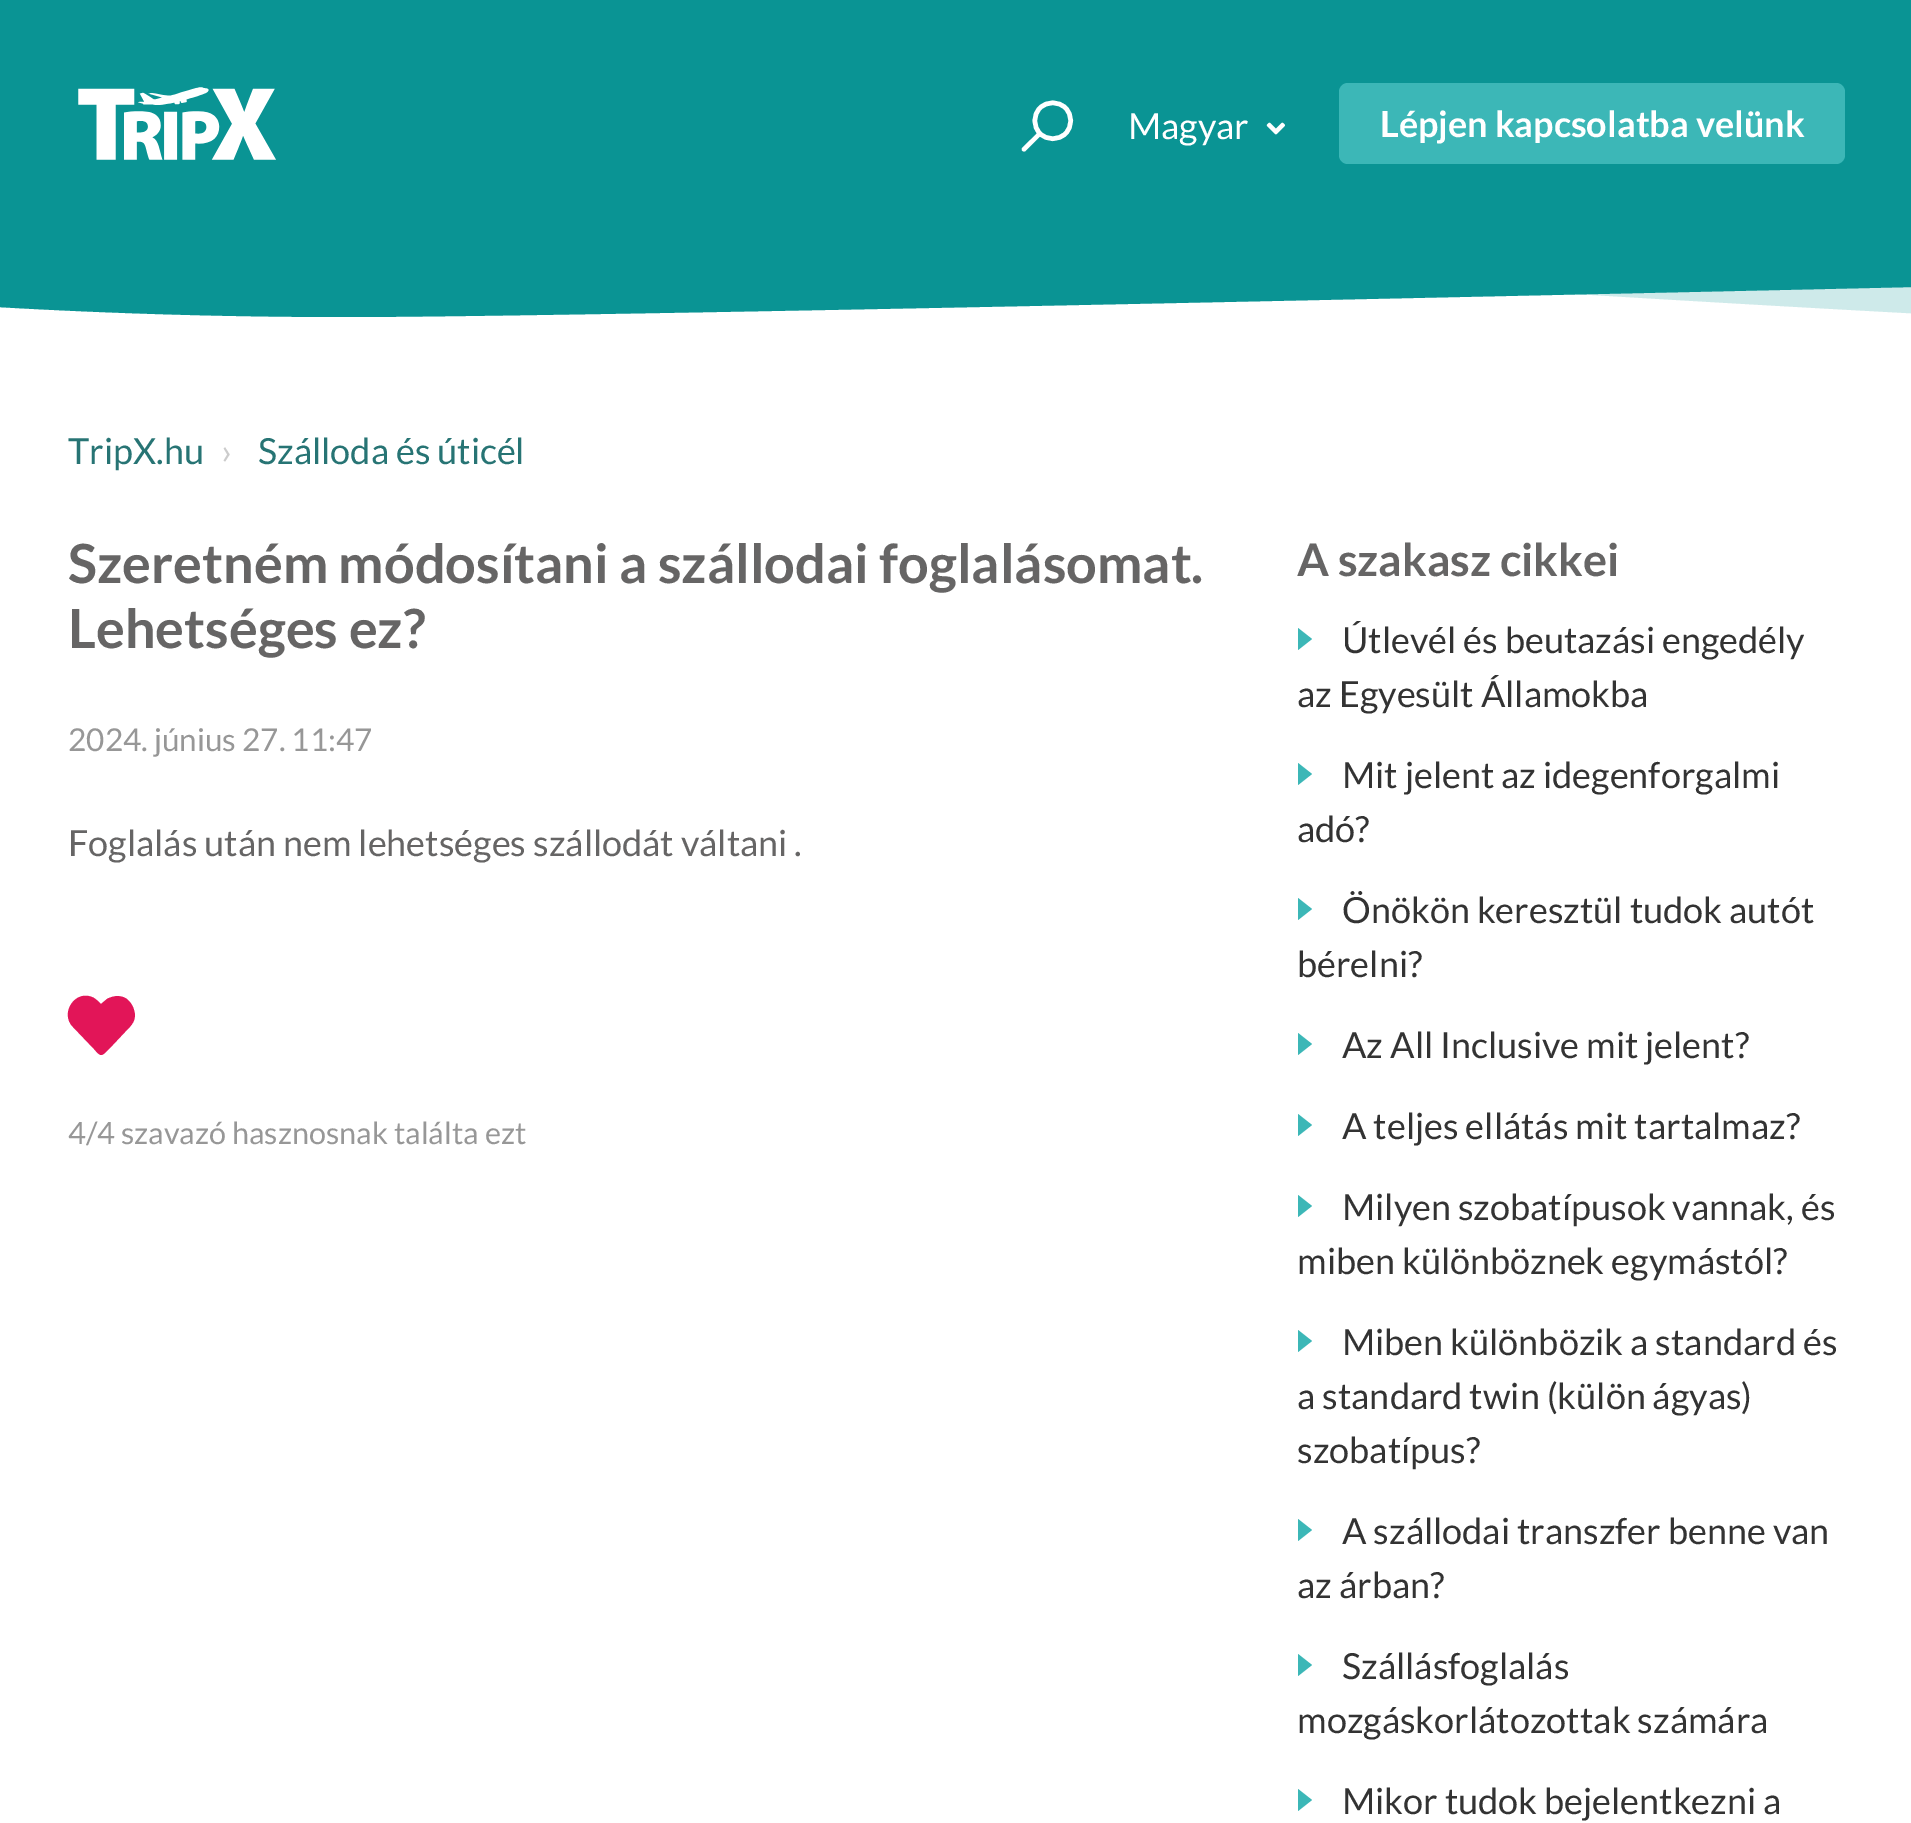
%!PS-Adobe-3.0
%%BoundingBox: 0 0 1911 1823
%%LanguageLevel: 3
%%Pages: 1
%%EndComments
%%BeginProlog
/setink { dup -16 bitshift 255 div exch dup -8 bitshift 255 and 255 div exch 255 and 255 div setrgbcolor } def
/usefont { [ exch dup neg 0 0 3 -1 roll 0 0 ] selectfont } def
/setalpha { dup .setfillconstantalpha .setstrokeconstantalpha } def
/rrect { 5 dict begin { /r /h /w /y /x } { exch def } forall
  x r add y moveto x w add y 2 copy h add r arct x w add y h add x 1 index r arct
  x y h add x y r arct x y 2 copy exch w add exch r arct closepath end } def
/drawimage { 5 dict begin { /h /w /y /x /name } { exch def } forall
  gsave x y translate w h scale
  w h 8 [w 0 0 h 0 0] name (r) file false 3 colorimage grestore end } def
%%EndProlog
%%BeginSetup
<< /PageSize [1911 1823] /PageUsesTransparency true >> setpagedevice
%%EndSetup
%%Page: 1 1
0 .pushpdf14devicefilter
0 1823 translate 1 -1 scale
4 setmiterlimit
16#FFFFFF setink
0 0 1911 1823 rectfill
16#0A9494 setink
0 0 1911 245 rectfill
(img1.raw) 78 87 198 73 drawimage
16#FFFFFF setink
4.5 setlinewidth
1065.5 108 moveto 1072.5 115 1072.5 126.5 1065.5 133.5 curveto 1058.5 140.5 1047 140.5 1040 133.5 curveto 1033 126.5 1033 115 1040 108 curveto 1047 101 1058.5 101 1065.5 108 curveto closepath stroke
1038.5 132 moveto 1041.5 135 lineto 1025.5 151 lineto 1025 151.5 1023.5 151.5 1022.5 151 curveto 1021.5 150 1021.5 148.5 1022.5 147.5 curveto closepath fill
/Lato-Regular 36 usefont
1128 139 moveto (Magyar) show
(img2.raw) 1266 122 19 13 drawimage
16#3CB7B7 setink
1339 83 506 81 9 rrect fill
/Lato-Bold 36 usefont
16#FFFFFF setink
1380 137 moveto (Lépjen kapcsolatba velünk) show
16#0A9494 setink
346 317 moveto 749 317 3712 245 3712 245 curveto -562 245 lineto -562 245 -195 317 346 317 curveto closepath fill
gsave
0 245 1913 106 rectclip
0.2 setalpha
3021 351 moveto 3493 351 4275 180 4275 180 curveto 0 180 lineto 0 180 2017 351 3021 351 curveto closepath fill
grestore
/Lato-Regular 36 usefont
16#277474 setink
68 464 moveto (TripX.hu) show
16#CCCCCC setink
221 464 moveto (›) show
16#277474 setink
258 464 moveto (Szálloda és úticél) show
/Lato-Bold 54 usefont
16#666565 setink
68 583 moveto (Szeretném módosítani a szállodai foglalásomat.) show
68 648 moveto (Lehetséges ez?) show
/Lato-Regular 31.5 usefont
16#979797 setink
68 751 moveto (2024. június 27. 11:47) show
/Lato-Regular 36 usefont
16#666565 setink
68 856 moveto (Foglalás után nem lehetséges szállodát váltani .) show
16#E21558 setink
128 1000 moveto 123 995 114 995 107 999 curveto 101 1004 lineto 99 1002 97 1000 94 998 curveto 76 988 59 1013 73 1027 curveto 94 1049 lineto 101 1057 101 1057 109 1049 curveto 125 1032 lineto 132 1025 137 1020 134 1010 curveto 133 1006 131 1003 128 1000 curveto closepath fill
/Lato-Regular 30.6 usefont
16#979797 setink
68 1144 moveto (4/4 szavazó hasznosnak találta ezt) show
/Lato-Bold 45 usefont
16#666565 setink
1297 576 moveto (A szakasz cikkei) show
16#3CB7B7 setink
1298 650 moveto 1298 628 lineto 1312 639 lineto closepath fill
/Lato-Regular 36 usefont
16#333333 setink
1342 653 moveto (Útlevél és beutazási engedély) show
1297 707 moveto (az Egyesült Államokba) show
16#3CB7B7 setink
1298 785 moveto 1298 763 lineto 1312 774 lineto closepath fill
16#333333 setink
1342 788 moveto (Mit jelent az idegenforgalmi) show
1297 842 moveto (adó?) show
16#3CB7B7 setink
1298 920 moveto 1298 898 lineto 1312 909 lineto closepath fill
16#333333 setink
1342 923 moveto (Önökön keresztül tudok autót) show
1297 977 moveto (bérelni?) show
16#3CB7B7 setink
1298 1055 moveto 1298 1033 lineto 1312 1044 lineto closepath fill
16#333333 setink
1342 1058 moveto (Az All Inclusive mit jelent?) show
16#3CB7B7 setink
1298 1136 moveto 1298 1114 lineto 1312 1125 lineto closepath fill
16#333333 setink
1342 1139 moveto (A teljes ellátás mit tartalmaz?) show
16#3CB7B7 setink
1298 1217 moveto 1298 1195 lineto 1312 1206 lineto closepath fill
16#333333 setink
1342 1220 moveto (Milyen szobatípusok vannak, és) show
1297 1274 moveto (miben különböznek egymástól?) show
16#3CB7B7 setink
1298 1352 moveto 1298 1330 lineto 1312 1341 lineto closepath fill
16#333333 setink
[
    [(Miben különbözik a standard és) 1342 1355]
    [(a standard twin \(külön ágyas\)) 1297 1409]
    [(szobatípus?) 1297 1463]
] { aload pop moveto show } forall
16#3CB7B7 setink
1298 1541 moveto 1298 1519 lineto 1312 1530 lineto closepath fill
16#333333 setink
1342 1544 moveto (A szállodai transzfer benne van) show
1297 1598 moveto (az árban?) show
16#3CB7B7 setink
1298 1676 moveto 1298 1654 lineto 1312 1665 lineto closepath fill
16#333333 setink
1342 1679 moveto (Szállásfoglalás) show
1297 1733 moveto (mozgáskorlátozottak számára) show
16#3CB7B7 setink
1298 1811 moveto 1298 1789 lineto 1312 1800 lineto closepath fill
16#333333 setink
1342 1814 moveto (Mikor tudok bejelentkezni a) show
.poppdf14devicefilter showpage
%%EOF
